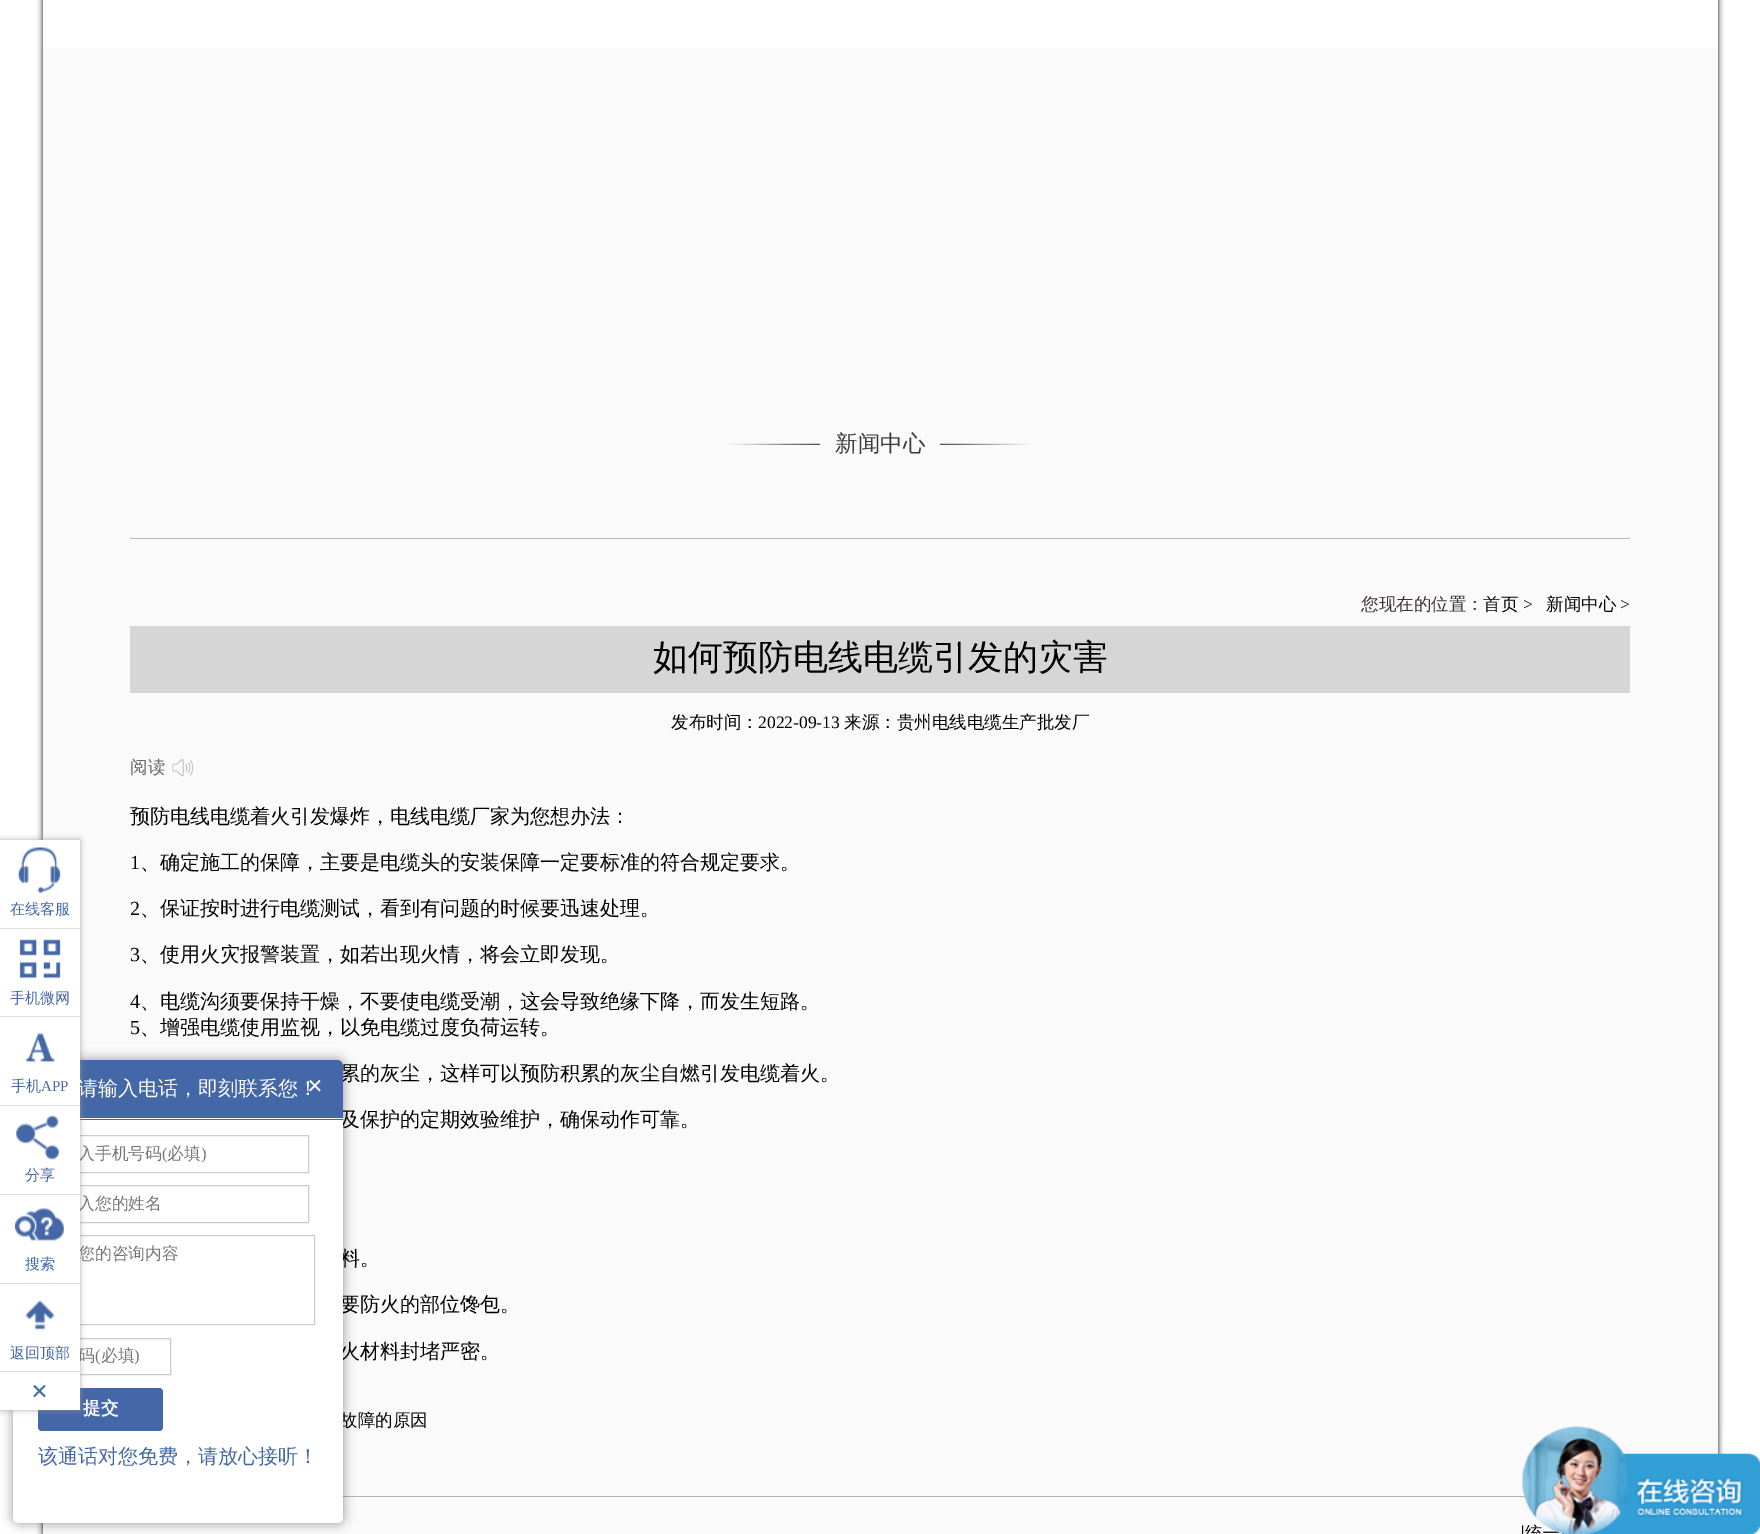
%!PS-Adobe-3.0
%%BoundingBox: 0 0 1760 1534
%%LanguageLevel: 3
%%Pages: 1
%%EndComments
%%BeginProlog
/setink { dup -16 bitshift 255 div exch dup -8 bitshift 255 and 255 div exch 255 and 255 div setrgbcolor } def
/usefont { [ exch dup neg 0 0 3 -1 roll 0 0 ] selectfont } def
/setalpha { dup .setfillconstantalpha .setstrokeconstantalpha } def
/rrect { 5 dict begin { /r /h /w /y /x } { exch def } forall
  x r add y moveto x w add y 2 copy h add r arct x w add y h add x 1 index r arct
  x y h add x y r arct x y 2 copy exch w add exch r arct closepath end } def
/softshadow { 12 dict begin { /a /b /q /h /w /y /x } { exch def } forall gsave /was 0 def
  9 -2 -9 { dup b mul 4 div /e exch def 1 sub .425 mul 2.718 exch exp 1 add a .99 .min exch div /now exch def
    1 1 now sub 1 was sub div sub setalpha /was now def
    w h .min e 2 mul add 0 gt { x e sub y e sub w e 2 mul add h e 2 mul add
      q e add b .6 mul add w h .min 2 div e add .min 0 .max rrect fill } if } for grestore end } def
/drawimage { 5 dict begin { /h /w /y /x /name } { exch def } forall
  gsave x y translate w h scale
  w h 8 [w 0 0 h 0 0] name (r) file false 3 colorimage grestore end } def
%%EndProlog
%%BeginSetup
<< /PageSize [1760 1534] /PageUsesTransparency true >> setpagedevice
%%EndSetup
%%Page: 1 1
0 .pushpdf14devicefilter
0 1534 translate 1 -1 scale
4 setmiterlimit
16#FFFFFF setink
0 0 1760 1534 rectfill
16#000000 setink
43 -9 1675 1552 0 3 1 softshadow
16#FAFAFA setink
43 48 1675 1486 rectfill
/WenQuanYiZenHei-Medium 20 usefont
16#000000 setink
[
    [(累的灰尘，这样可以预防积累的灰尘自燃引发电缆着火。) 340 1080]
    [(及保护的定期效验维护，确保动作可靠。) 340 1126]
    [(料。) 340 1265]
    [(要防火的部位馋包。) 340 1311]
    [(火材料封堵严密。) 340 1358]
] { aload pop moveto show } forall
/WenQuanYiZenHei-Medium 17.5 usefont
340 1426 moveto (故障的原因) show
16#B5B5B5 setink
343 1496 1183 1 rectfill
16#000000 setink
13 1060 330 463 6 6 0.4 softshadow
16#FFFFFF setink
13 1060 330 463 6 rrect fill
16#4467A7 setink
19 1060 moveto 337 1060 lineto 340.5 1060 343 1062.5 343 1066 curveto 343 1120 lineto 13 1120 lineto 13 1066 lineto 13 1062.5 15.5 1060 19 1060 curveto closepath fill
16#FFFFFF setink
80 1118 263 1 rectfill
16#CCCCCC setink
38.5 1135.5 270 37 rectstroke
38.5 1185.5 270 37 rectstroke
38.5 1235.5 276 89 rectstroke
38.5 1338.5 132 36 rectstroke
16#4467A7 setink
38 1388 125 43 4 rrect fill
16#969696 setink
0 840 80 570 0 3 0.8 softshadow
/WenQuanYiZenHei-Medium 16.75 usefont
16#757575 setink
[
    [(入手机号码) 78 1159]
    [(入您的姓名) 78 1209]
    [(您的咨询内容) 78 1259]
    [(码) 78 1361]
] { aload pop moveto show } forall
16#FFFFFF setink
0 840 80 570 rectfill
16#DDDDDD setink
0 928 80 1 rectfill
(img1.raw) 18 847 43 47 drawimage
/WenQuanYiZenHei-Medium 15 usefont
16#4467A7 setink
10 914 moveto (在线客服) show
16#DDDDDD setink
0 1016 80 1 rectfill
(img2.raw) 19 939 42 40 drawimage
16#4467A7 setink
10 1003 moveto (手机微网) show
16#DDDDDD setink
0 1105 80 1 rectfill
(img3.raw) 26 1033 30 30 drawimage
16#4467A7 setink
11 1091 moveto (手机) show
/LiberationSerif-Regular 15 usefont
41 1091 moveto (APP) show
16#DDDDDD setink
0 1194 80 1 rectfill
(img4.raw) 16 1115 43 45 drawimage
/WenQuanYiZenHei-Medium 15 usefont
16#4467A7 setink
25 1180 moveto (分享) show
16#DDDDDD setink
0 1283 80 1 rectfill
(img5.raw) 15 1208 49 33 drawimage
16#4467A7 setink
25 1269 moveto (搜索) show
16#DDDDDD setink
0 1371 80 1 rectfill
(img6.raw) 26 1300 28 30 drawimage
16#4467A7 setink
10 1358 moveto (返回顶部) show
/LiberationSerif-Bold 30 usefont
31 1401 moveto (×) show
/WenQuanYiZenHei-Medium 17.5 usefont
16#000000 setink
1543 1539 moveto (一) show
(img7.raw) 1522 1426 238 108 drawimage
16#FFFFFF setink
43 0 1675 48 rectfill
16#B5B5B5 setink
130 538 1500 1 rectfill
(img8.raw) 727 443 93 2 drawimage
/WenQuanYiZenHei-Medium 22.5 usefont
16#3A3A3A setink
835 451 moveto (新闻中心) show
(img9.raw) 940 443 93 2 drawimage
/WenQuanYiZenHei-Medium 17.5 usefont
16#3A3030 setink
1361 610 moveto (您现在的位置：) show
16#000000 setink
1483 610 moveto (首页) show
/LiberationSerif-Regular 17.5 usefont
1523 610 moveto (>) show
/WenQuanYiZenHei-Medium 17.5 usefont
1546 610 moveto (新闻中心) show
/LiberationSerif-Regular 17.5 usefont
1620 610 moveto (>) show
16#D6D6D6 setink
130 626 1500 67 rectfill
/WenQuanYiZenHei-Medium 35 usefont
16#000000 setink
653 669 moveto (如何预防电线电缆引发的灾害) show
/WenQuanYiZenHei-Medium 17.5 usefont
671 728 moveto (发布时间：) show
/LiberationSerif-Regular 17.5 usefont
758 728 moveto (2022-09-13) show
/WenQuanYiZenHei-Medium 17.5 usefont
844 728 moveto (来源：贵州电线电缆生产批发厂) show
16#666666 setink
130 773 moveto (阅读) show
(img10.raw) 172 759 22 18 drawimage
/WenQuanYiZenHei-Medium 20 usefont
16#000000 setink
130 823 moveto (预防电线电缆着火引发爆炸，电线电缆厂家为您想办法：) show
/LiberationSerif-Regular 20 usefont
130 869 moveto (1) show
/WenQuanYiZenHei-Medium 20 usefont
140 869 moveto (、确定施工的保障，主要是电缆头的安装保障一定要标准的符合规定要求。) show
/LiberationSerif-Regular 20 usefont
130 915 moveto (2) show
/WenQuanYiZenHei-Medium 20 usefont
140 915 moveto (、保证按时进行电缆测试，看到有问题的时候要迅速处理。) show
/LiberationSerif-Regular 20 usefont
130 961 moveto (3) show
/WenQuanYiZenHei-Medium 20 usefont
140 961 moveto (、使用火灾报警装置，如若出现火情，将会立即发现。) show
/LiberationSerif-Regular 20 usefont
130 1008 moveto (4) show
/WenQuanYiZenHei-Medium 20 usefont
140 1008 moveto (、电缆沟须要保持干燥，不要使电缆受潮，这会导致绝缘下降，而发生短路。) show
/LiberationSerif-Regular 20 usefont
130 1034 moveto (5) show
/WenQuanYiZenHei-Medium 20 usefont
140 1034 moveto (、增强电缆使用监视，以免电缆过度负荷运转。) show
16#FFFFFF setink
78 1095 moveto (请输入电话，即刻联系您！) show
/LiberationSerif-Bold 28 usefont
307 1095 moveto (×) show
/LiberationSerif-Regular 16.75 usefont
16#757575 setink
162 1159 moveto (\() show
/WenQuanYiZenHei-Medium 16.75 usefont
167 1159 moveto (必填) show
/LiberationSerif-Regular 16.75 usefont
201 1159 moveto (\)) show
95 1361 moveto (\() show
/WenQuanYiZenHei-Medium 16.75 usefont
101 1361 moveto (必填) show
/LiberationSerif-Regular 16.75 usefont
134 1361 moveto (\)) show
/WenQuanYiZenHei-Bold 17.5 usefont
16#FFFFFF setink
83 1414 moveto (提交) show
/WenQuanYiZenHei-Medium 20 usefont
16#4467A7 setink
38 1463 moveto (该通话对您免费，请放心接听！) show
.poppdf14devicefilter showpage
%%EOF
